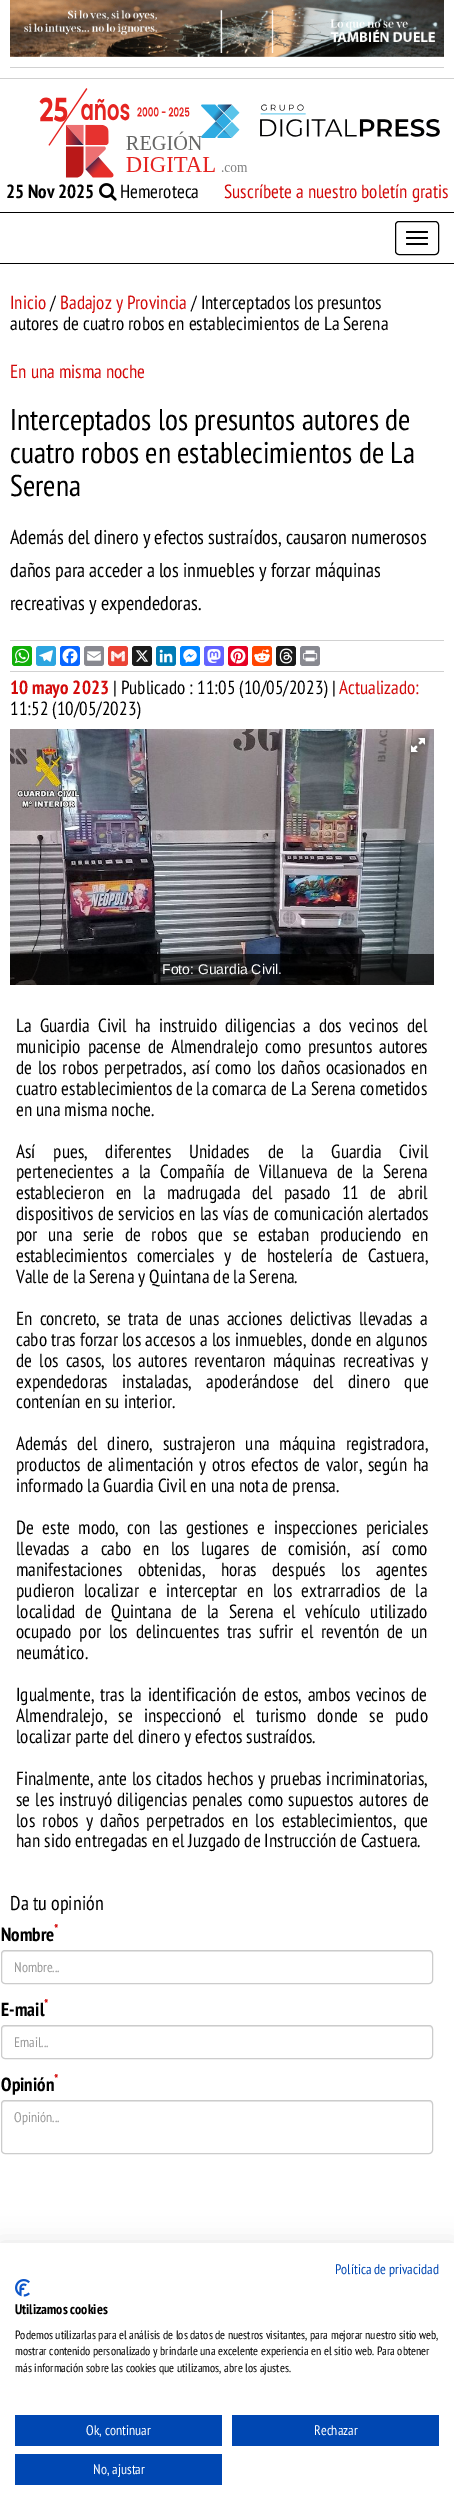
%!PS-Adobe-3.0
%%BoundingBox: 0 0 454 2512
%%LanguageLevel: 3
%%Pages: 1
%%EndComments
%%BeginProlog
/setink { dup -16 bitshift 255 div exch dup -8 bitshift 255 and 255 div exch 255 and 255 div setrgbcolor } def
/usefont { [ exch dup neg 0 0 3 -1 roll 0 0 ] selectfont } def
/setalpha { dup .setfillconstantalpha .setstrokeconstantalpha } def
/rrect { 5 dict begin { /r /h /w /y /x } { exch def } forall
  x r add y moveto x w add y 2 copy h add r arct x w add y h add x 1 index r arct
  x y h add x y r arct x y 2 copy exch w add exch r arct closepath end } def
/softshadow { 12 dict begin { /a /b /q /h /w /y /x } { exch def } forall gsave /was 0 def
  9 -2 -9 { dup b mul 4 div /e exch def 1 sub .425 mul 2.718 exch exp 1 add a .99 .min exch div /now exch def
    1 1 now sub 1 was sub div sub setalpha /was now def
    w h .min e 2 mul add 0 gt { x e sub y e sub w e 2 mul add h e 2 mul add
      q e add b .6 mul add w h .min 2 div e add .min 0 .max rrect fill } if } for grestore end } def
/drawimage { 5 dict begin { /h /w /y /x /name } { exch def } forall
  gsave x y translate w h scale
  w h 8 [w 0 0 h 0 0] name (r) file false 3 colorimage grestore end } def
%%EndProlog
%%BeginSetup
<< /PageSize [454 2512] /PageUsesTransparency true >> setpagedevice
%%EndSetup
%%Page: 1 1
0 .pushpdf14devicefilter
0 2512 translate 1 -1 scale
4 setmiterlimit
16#FFFFFF setink
0 0 454 2512 rectfill
(img1.raw) 10 0 434 57 drawimage
16#D1D1D1 setink
10 67 434 1 rectfill
0 78 454 1 rectfill
(img2.raw) 39 88 209 90 drawimage
(img3.raw) 201 104 239 34 drawimage
/PTSansNarrow-Bold 19 usefont
16#000000 setink
6 198 moveto (25 Nov 2025) show
(img4.raw) 99 183 18 18 drawimage
/PTSansNarrow-Regular 19 usefont
120 198 moveto (Hemeroteca) show
16#D20A0A setink
224 198 moveto (Suscríbete a nuestro boletín gratis) show
16#000000 setink
0 212 454 1 rectfill
0 263 454 1 rectfill
395.5 221.5 43 33 3.5 rrect stroke
406 231 22 2 1 rrect fill
406 237 22 2 1 rrect fill
406 243 22 2 1 rrect fill
16#D20A0A setink
10 309 moveto (Inicio) show
16#000000 setink
50 309 moveto (/) show
16#D20A0A setink
60 309 moveto (Badajoz y Provincia) show
16#000000 setink
191 309 moveto (/ Interceptados los presuntos) show
10 330 moveto (autores de cuatro robos en establecimientos de La Serena) show
16#D20A0A setink
10 378 moveto (En una misma noche) show
/PTSansNarrow-Regular 30 usefont
16#000000 setink
[
    [(Interceptados los presuntos autores de) 10 430]
    [(cuatro robos en establecimientos de La) 10 463]
    [(Serena) 10 496]
] { aload pop moveto show } forall
/PTSansNarrow-Regular 20 usefont
[
    [(Además del dinero y efectos sustraídos, causaron numerosos) 10 544]
    [(daños para acceder a los inmuebles y forzar máquinas) 10 577]
    [(recreativas y expendedoras.) 10 610]
] { aload pop moveto show } forall
16#D1D1D1 setink
10 640 434 1 rectfill
16#12AF0A setink
12 646 20 20 3 rrect fill
(img5.raw) 14 648 16 16 drawimage
16#2CA5E0 setink
36 646 20 20 3 rrect fill
(img6.raw) 39 650 14 12 drawimage
16#0866FF setink
60 646 20 20 3 rrect fill
(img7.raw) 62 648 16 16 drawimage
16#888990 setink
84 646 20 20 3 rrect fill
(img8.raw) 87 651 14 10 drawimage
16#EA4335 setink
108 646 20 20 3 rrect fill
(img9.raw) 111 651 14 11 drawimage
16#1A1A1A setink
132 646 20 20 3 rrect fill
(img10.raw) 135 650 14 12 drawimage
16#007BB5 setink
156 646 20 20 3 rrect fill
(img11.raw) 159 649 14 14 drawimage
16#0084FF setink
180 646 20 20 3 rrect fill
(img12.raw) 183 649 14 14 drawimage
16#6364FF setink
204 646 20 20 3 rrect fill
(img13.raw) 207 649 14 14 drawimage
16#E60023 setink
228 646 20 20 3 rrect fill
(img14.raw) 230 648 16 16 drawimage
16#FF4500 setink
252 646 20 20 3 rrect fill
(img15.raw) 254 649 16 14 drawimage
16#1A1A1A setink
276 646 20 20 3 rrect fill
(img16.raw) 279 648 14 16 drawimage
16#888990 setink
300 646 20 20 3 rrect fill
(img17.raw) 303 650 15 12 drawimage
16#D1D1D1 setink
10 671 434 1 rectfill
/PTSansNarrow-Bold 19 usefont
16#D20A0A setink
10 694 moveto (10 mayo 2023) show
/PTSansNarrow-Regular 19 usefont
16#000000 setink
113 694 moveto (| Publicado : 11:05 \(10/05/2023\) |) show
16#D20A0A setink
339 694 moveto (Actualizado:) show
16#000000 setink
10 715 moveto (11:52 \(10/05/2023\)) show
(img19.raw) 10 729 424 256 drawimage
(img18.raw) 407 734 22 22 drawimage
0.7 setalpha
10 954 424 31 rectfill
/LiberationSans-Regular 14 usefont
1 setalpha
16#FFFFFF setink
162 974 moveto (Foto: Guardia Civil.) show
/PTSansNarrow-Regular 19 usefont
16#000000 setink
16 1032 moveto 4 0 32 (La Guardia Civil ha instruido diligencias a dos vecinos del) widthshow
16 1053 moveto 3 0 32 (municipio pacense de Almendralejo como presuntos autores) widthshow
16 1074 moveto 1.6 0 32 (de los robos perpetrados, así como los daños ocasionados en) widthshow
16 1095 moveto (cuatro establecimientos de la comarca de La Serena cometidos) show
16 1116 moveto (en una misma noche.) show
16 1158 moveto 13.75 0 32 (Así pues, diferentes Unidades de la Guardia Civil) widthshow
16 1178 moveto 5 0 32 (pertenecientes a la Compañía de Villanueva de la Serena) widthshow
16 1199 moveto 7.5 0 32 (establecieron en la madrugada del pasado 11 de abril) widthshow
16 1220 moveto 0.5 0 32 (dispositivos de servicios en las vías de comunicación alertados) widthshow
16 1241 moveto 6.5 0 32 (por una serie de robos que se estaban produciendo en) widthshow
16 1262 moveto 5.75 0 32 (establecimientos comerciales y de hostelería de Castuera,) widthshow
16 1283 moveto (Valle de la Serena y Quintana de la Serena.) show
16 1325 moveto 3 0 32 (En concreto, se trata de unas acciones delictivas llevadas a) widthshow
16 1346 moveto 0.25 0 32 (cabo tras forzar los accesos a los inmuebles, donde en algunos) widthshow
16 1367 moveto 3.25 0 32 (de los casos, los autores reventaron máquinas recreativas y) widthshow
16 1388 moveto 10.5 0 32 (expendedoras instaladas, apoderándose del dinero que) widthshow
16 1408 moveto (contenían en su interior.) show
16 1450 moveto 5.75 0 32 (Además del dinero, sustrajeron una máquina registradora,) widthshow
16 1471 moveto 1.75 0 32 (productos de alimentación y otros efectos de valor, según ha) widthshow
16 1492 moveto (informado la Guardia Civil en una nota de prensa.) show
16 1534 moveto 4.5 0 32 (De este modo, con las gestiones e inspecciones periciales) widthshow
16 1555 moveto 7.5 0 32 (llevadas a cabo en los lugares de comisión, así como) widthshow
16 1576 moveto 11.5 0 32 (manifestaciones obtenidas, horas después los agentes) widthshow
16 1597 moveto 5.5 0 32 (pudieron localizar e interceptar en los extrarradios de la) widthshow
16 1618 moveto 5.75 0 32 (localidad de Quintana de la Serena el vehículo utilizado) widthshow
16 1638 moveto 3.75 0 32 (ocupado por los delincuentes tras sufrir el reventón de un) widthshow
16 1659 moveto (neumático.) show
16 1701 moveto 1.75 0 32 (Igualmente, tras la identificación de estos, ambos vecinos de) widthshow
16 1722 moveto 7.25 0 32 (Almendralejo, se inspeccionó el turismo donde se pudo) widthshow
16 1743 moveto (localizar parte del dinero y efectos sustraídos.) show
16 1785 moveto 0.75 0 32 (Finalmente, ante los citados hechos y pruebas incriminatorias,) widthshow
16 1806 moveto 1 0 32 (se les instruyó diligencias penales como supuestos autores de) widthshow
16 1827 moveto 3.25 0 32 (los robos y daños perpetrados en los establecimientos, que) widthshow
16 1847 moveto (han sido entregadas en el Juzgado de Instrucción de Castuera.) show
/PTSansNarrow-Regular 20 usefont
10 1910 moveto (Da tu opinión) show
/PTSansNarrow-Bold 14 usefont
16#D20A0A setink
54 1934 moveto (*) show
/PTSansNarrow-Bold 19 usefont
16#000000 setink
1 1941 moveto (Nombre) show
16#ECECEC setink
5 1952 moveto 429 1952 lineto 431 1952 432 1953 432 1955 curveto 432 1953 431 1951 429 1951 curveto 5 1951 lineto 3 1951 2 1953 2 1955 curveto 2 1953 3 1952 5 1952 curveto closepath fill
16#CCCCCC setink
1.5 1950.5 431 33 3.5 rrect stroke
/PTSansNarrow-Regular 14 usefont
16#999999 setink
14 1972 moveto (Nombre...) show
/PTSansNarrow-Bold 14 usefont
16#D20A0A setink
44 2009 moveto (*) show
/PTSansNarrow-Bold 19 usefont
16#000000 setink
1 2016 moveto (E-mail) show
16#ECECEC setink
5 2027 moveto 429 2027 lineto 431 2027 432 2028 432 2030 curveto 432 2028 431 2026 429 2026 curveto 5 2026 lineto 3 2026 2 2028 2 2030 curveto 2 2028 3 2027 5 2027 curveto closepath fill
16#CCCCCC setink
1.5 2025.5 431 33 3.5 rrect stroke
/PTSansNarrow-Regular 14 usefont
16#999999 setink
14 2047 moveto (Email...) show
/PTSansNarrow-Bold 14 usefont
16#D20A0A setink
54 2084 moveto (*) show
/PTSansNarrow-Bold 19 usefont
16#000000 setink
1 2091 moveto (Opinión) show
16#ECECEC setink
5 2102 moveto 429 2102 lineto 431 2102 432 2103 432 2105 curveto 432 2103 431 2101 429 2101 curveto 5 2101 lineto 3 2101 2 2103 2 2105 curveto 2 2103 3 2102 5 2102 curveto closepath fill
16#CCCCCC setink
1.5 2100.5 431 53 3.5 rrect stroke
/PTSansNarrow-Regular 14 usefont
16#999999 setink
14 2122 moveto (Opinión...) show
16#000000 setink
0 2243 454 269 0 12 0.1 softshadow
16#FFFFFF setink
0 2243 454 269 rectfill
16#0047B2 setink
335 2274 moveto (Política de privacidad) show
(img20.raw) 15 2279 15 18 drawimage
/PTSansNarrow-Bold 14 usefont
16#000000 setink
15 2314 moveto (Utilizamos cookies) show
/PTSansNarrow-Regular 12 usefont
[
    [(Podemos utilizarlas para el análisis de los datos de nuestros visitantes, para mejorar nuestro sitio web,) 15 2339]
    [(mostrar contenido personalizado y brindarle una excelente experiencia en el sitio web. Para obtener) 15 2355]
    [(más información sobre las cookies que utilizamos, abre los ajustes.) 15 2372]
] { aload pop moveto show } forall
16#0047B2 setink
15 2415 207 31 rectfill
/PTSansNarrow-Regular 14 usefont
16#FFFFFF setink
86 2435 moveto (Ok, continuar) show
16#0047B2 setink
232 2415 207 31 rectfill
16#FFFFFF setink
314 2435 moveto (Rechazar) show
16#0047B2 setink
15 2454 207 31 rectfill
16#FFFFFF setink
93 2474 moveto (No, ajustar) show
.poppdf14devicefilter showpage
%%EOF
